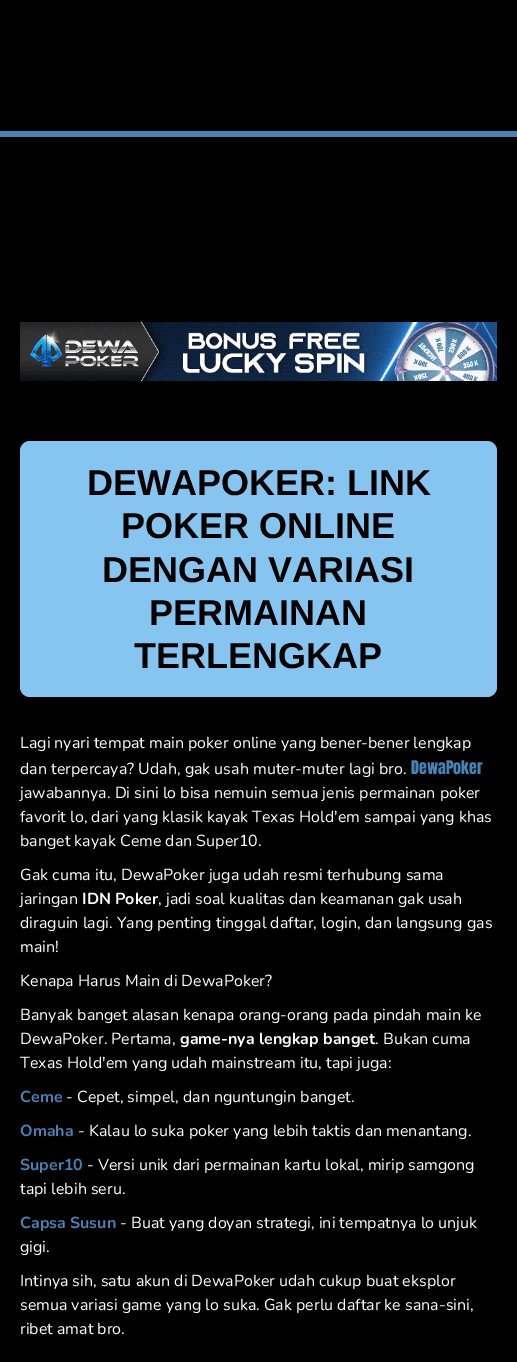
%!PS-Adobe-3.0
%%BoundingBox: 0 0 517 1362
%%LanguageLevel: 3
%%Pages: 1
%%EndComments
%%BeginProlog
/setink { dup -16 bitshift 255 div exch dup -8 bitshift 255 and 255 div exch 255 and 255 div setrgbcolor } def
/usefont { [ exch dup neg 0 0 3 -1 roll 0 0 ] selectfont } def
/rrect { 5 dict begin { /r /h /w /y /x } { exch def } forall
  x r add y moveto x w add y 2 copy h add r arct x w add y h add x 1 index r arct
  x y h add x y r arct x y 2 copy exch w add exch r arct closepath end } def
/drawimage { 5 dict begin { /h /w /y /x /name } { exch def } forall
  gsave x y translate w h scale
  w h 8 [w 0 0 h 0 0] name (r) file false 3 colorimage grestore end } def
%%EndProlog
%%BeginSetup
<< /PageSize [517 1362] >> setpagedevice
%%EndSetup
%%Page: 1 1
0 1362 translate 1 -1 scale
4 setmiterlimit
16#000000 setink
0 0 517 1362 rectfill
16#4682B4 setink
0 131 517 6 rectfill
(img1.raw) 20 322 477 59 drawimage
16#87C5F1 setink
20 441 477 256 10 rrect fill
/LiberationSans-Bold 36 usefont
16#000000 setink
[
    [(DEWAPOKER: LINK) 87 495]
    [(POKER ONLINE) 121 538]
    [(DENGAN VARIASI) 102 582]
    [(PERMAINAN) 149 625]
    [(TERLENGKAP) 134 668]
] { aload pop moveto show } forall
/Nunito-Regular 16 usefont
16#FFFFFF setink
20 748 moveto (Lagi nyari tempat main poker online yang bener-bener lengkap) show
20 774 moveto (dan terpercaya? Udah, gak usah muter-muter lagi bro.) show
/Anton-Regular 16 usefont
16#4682B4 setink
411 774 moveto (DewaPoker) show
/Nunito-Regular 16 usefont
16#FFFFFF setink
[
    [(jawabannya. Di sini lo bisa nemuin semua jenis permainan poker) 20 798]
    [(favorit lo, dari yang klasik kayak Texas Hold'em sampai yang khas) 20 822]
    [(banget kayak Ceme dan Super10.) 20 846]
    [(Gak cuma itu, DewaPoker juga udah resmi terhubung sama) 20 880]
    [(jaringan) 20 904]
] { aload pop moveto show } forall
/Nunito-Bold 16 usefont
82 904 moveto (IDN Poker) show
/Nunito-Regular 16 usefont
[
    [(, jadi soal kualitas dan keamanan gak usah) 158 904]
    [(diraguin lagi. Yang penting tinggal daftar, login, dan langsung gas) 20 928]
    [(main!) 20 952]
    [(Kenapa Harus Main di DewaPoker?) 20 986]
    [(Banyak banget alasan kenapa orang-orang pada pindah main ke) 20 1020]
    [(DewaPoker. Pertama,) 20 1044]
] { aload pop moveto show } forall
/Nunito-Bold 16 usefont
180 1044 moveto (game-nya lengkap banget) show
/Nunito-Regular 16 usefont
375 1044 moveto (. Bukan cuma) show
20 1068 moveto (Texas Hold'em yang udah mainstream itu, tapi juga:) show
/Nunito-Bold 16 usefont
16#4682B4 setink
20 1102 moveto (Ceme) show
/Nunito-Regular 16 usefont
16#FFFFFF setink
66 1102 moveto (- Cepet, simpel, dan nguntungin banget.) show
/Nunito-Bold 16 usefont
16#4682B4 setink
20 1136 moveto (Omaha) show
/Nunito-Regular 16 usefont
16#FFFFFF setink
78 1136 moveto (- Kalau lo suka poker yang lebih taktis dan menantang.) show
/Nunito-Bold 16 usefont
16#4682B4 setink
20 1170 moveto (Super10) show
/Nunito-Regular 16 usefont
16#FFFFFF setink
87 1170 moveto (- Versi unik dari permainan kartu lokal, mirip samgong) show
20 1194 moveto (tapi lebih seru.) show
/Nunito-Bold 16 usefont
16#4682B4 setink
20 1228 moveto (Capsa Susun) show
/Nunito-Regular 16 usefont
16#FFFFFF setink
[
    [(- Buat yang doyan strategi, ini tempatnya lo unjuk) 120 1228]
    [(gigi.) 20 1252]
    [(Intinya sih, satu akun di DewaPoker udah cukup buat eksplor) 20 1286]
    [(semua variasi game yang lo suka. Gak perlu daftar ke sana-sini,) 20 1310]
    [(ribet amat bro.) 20 1334]
] { aload pop moveto show } forall
showpage
%%EOF
